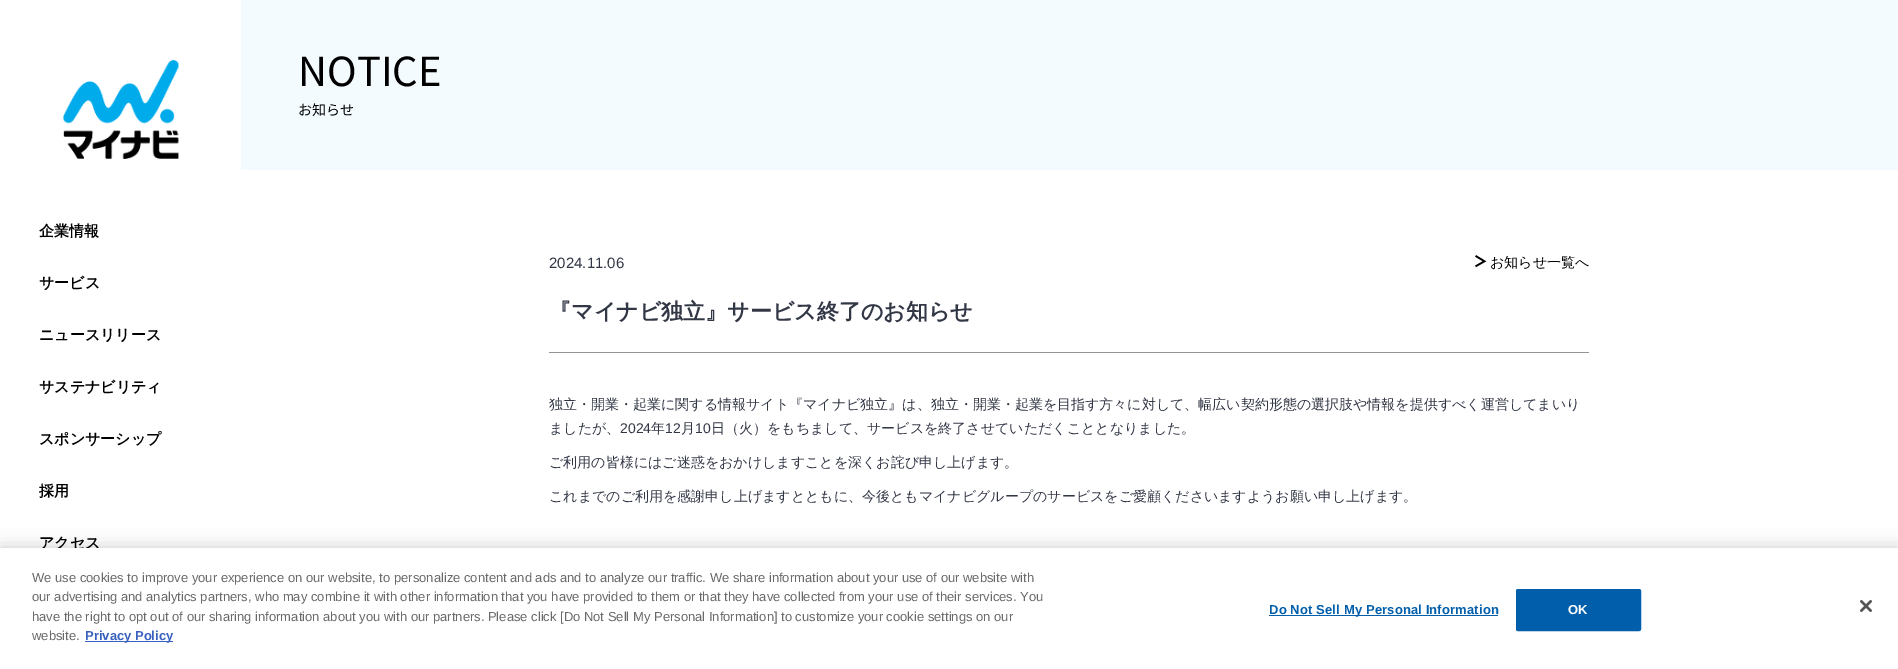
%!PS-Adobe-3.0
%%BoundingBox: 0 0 1898 669
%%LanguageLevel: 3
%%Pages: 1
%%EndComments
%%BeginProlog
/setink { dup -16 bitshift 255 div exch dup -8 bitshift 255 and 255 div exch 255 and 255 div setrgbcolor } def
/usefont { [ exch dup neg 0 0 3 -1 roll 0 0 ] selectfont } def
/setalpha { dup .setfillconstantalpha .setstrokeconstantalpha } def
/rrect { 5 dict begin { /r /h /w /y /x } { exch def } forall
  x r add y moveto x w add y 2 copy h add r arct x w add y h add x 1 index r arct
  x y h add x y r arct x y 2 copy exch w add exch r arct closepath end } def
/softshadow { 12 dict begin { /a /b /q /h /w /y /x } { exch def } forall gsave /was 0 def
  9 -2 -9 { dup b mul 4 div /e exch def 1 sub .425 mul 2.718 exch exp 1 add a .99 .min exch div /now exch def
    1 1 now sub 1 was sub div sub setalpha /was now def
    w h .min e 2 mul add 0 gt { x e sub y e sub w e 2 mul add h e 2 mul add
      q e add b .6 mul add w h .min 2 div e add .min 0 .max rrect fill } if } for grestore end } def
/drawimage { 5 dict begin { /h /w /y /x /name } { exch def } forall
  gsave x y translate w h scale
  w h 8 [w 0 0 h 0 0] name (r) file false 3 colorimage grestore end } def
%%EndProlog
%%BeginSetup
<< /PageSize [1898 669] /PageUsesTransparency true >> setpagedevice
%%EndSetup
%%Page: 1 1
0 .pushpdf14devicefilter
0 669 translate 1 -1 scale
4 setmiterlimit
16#FFFFFF setink
0 0 1898 669 rectfill
(img1.raw) 63 60 116 99 drawimage
/WenQuanYiZenHei-Bold 15 usefont
16#000000 setink
[
    [(企業情報) 39 236]
    [(サービス) 39 288]
    [(ニュースリリース) 39 340]
    [(サステナビリティ) 39 392]
    [(スポンサーシップ) 39 444]
    [(採用) 39 496]
    [(アクセス) 39 548]
] { aload pop moveto show } forall
16#F3FBFE setink
241 0 1657 170 rectfill
/NotoSansJP-Thin 40 usefont
16#000000 setink
298 86 moveto (NOTICE) show
/NotoSansJP-Thin 14 usefont
298 115 moveto (お知らせ) show
/LiberationSans-Regular 15 usefont
16#323746 setink
549 268 moveto (2024.11.06) show
(img2.raw) 1475 255 12 13 drawimage
/WenQuanYiZenHei-Medium 14 usefont
16#000000 setink
1490 267 moveto (お知らせ一覧へ) show
16#969393 setink
549 352 1040 1 rectfill
/WenQuanYiZenHei-Bold 22 usefont
16#323746 setink
549 319 moveto (『マイナビ独立』サービス終了のお知らせ) show
/WenQuanYiZenHei-Medium 14 usefont
549 409 moveto (独立・開業・起業に関する情報サイト『マイナビ独立』は、独立・開業・起業を目指す方々に対して、幅広い契約形態の選択肢や情報を提供すべく運営してまいり) show
549 433 moveto (ましたが、) show
/LiberationSans-Regular 14 usefont
620 433 moveto (2024) show
/WenQuanYiZenHei-Medium 14 usefont
651 433 moveto (年) show
/LiberationSans-Regular 14 usefont
665 433 moveto (12) show
/WenQuanYiZenHei-Medium 14 usefont
681 433 moveto (月) show
/LiberationSans-Regular 14 usefont
695 433 moveto (10) show
/WenQuanYiZenHei-Medium 14 usefont
[
    [(日（火）をもちまして、サービスを終了させていただくこととなりました。) 711 433]
    [(ご利用の皆様にはご迷惑をおかけしますことを深くお詫び申し上げます。) 549 467]
    [(これまでのご利用を感謝申し上げますとともに、今後ともマイナビグループのサービスをご愛顧くださいますようお願い申し上げます。) 549 501]
] { aload pop moveto show } forall
16#000000 setink
0 548 1898 121 0 9 0.2 softshadow
16#FFFFFF setink
0 548 1898 121 rectfill
/LiberationSans-Regular 13 usefont
16#696969 setink
[
    [(We use cookies to improve your experience on our website, to personalize content and ads and to analyze our traffic. We share information about your use of our website with) 32 582]
    [(our advertising and analytics partners, who may combine it with other information that you have provided to them or that they have collected from your use of their services. You) 32 601]
    [(have the right to opt out of our sharing information about you with our partners. Please click [Do Not Sell My Personal Information] to customize your cookie settings on our) 32 621]
    [(website.) 32 640]
] { aload pop moveto show } forall
16#3860BE setink
85 641 88 1 rectfill
/LiberationSans-Bold 13 usefont
85 640 moveto (Privacy Policy) show
16#005EAB setink
1269 615 229 1 rectfill
1269 614 moveto 0.15 0 (Do Not Sell My Personal Information) ashow
1516.5 589.5 124 41 1.5 rrect gsave fill grestore
stroke
16#FFFFFF setink
1568 614 moveto 0.15 0 (OK) ashow
(img3.raw) 1860 600 12 12 drawimage
.poppdf14devicefilter showpage
%%EOF
